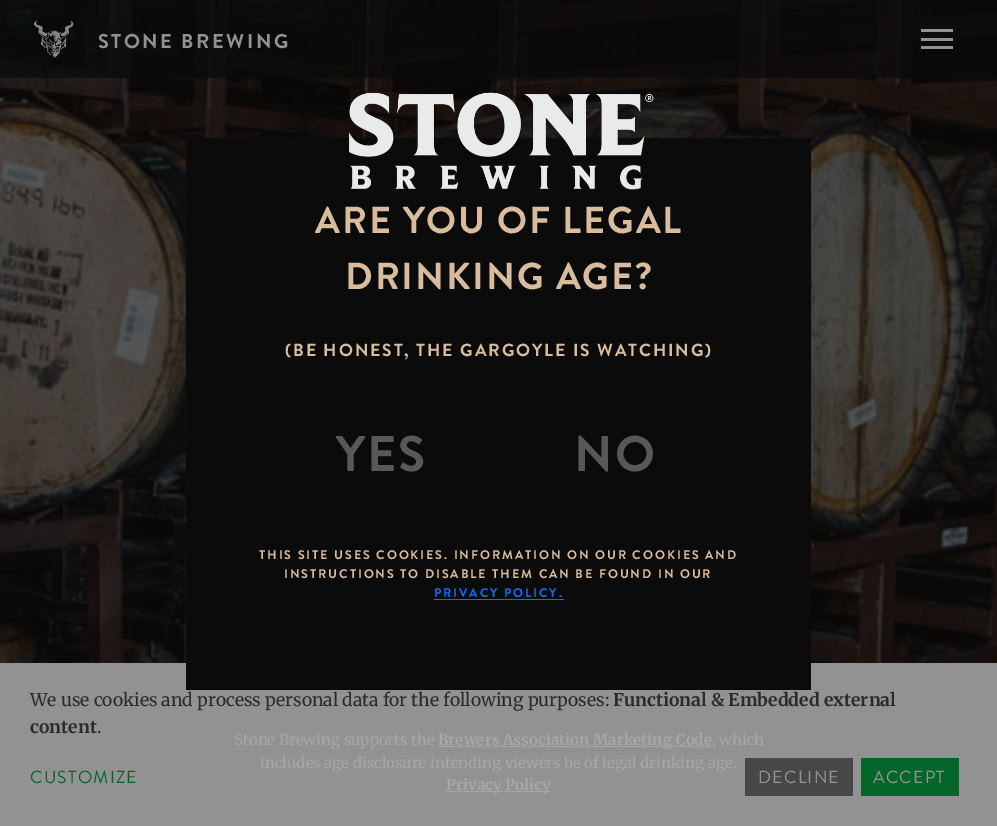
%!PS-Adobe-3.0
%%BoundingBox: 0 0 997 826
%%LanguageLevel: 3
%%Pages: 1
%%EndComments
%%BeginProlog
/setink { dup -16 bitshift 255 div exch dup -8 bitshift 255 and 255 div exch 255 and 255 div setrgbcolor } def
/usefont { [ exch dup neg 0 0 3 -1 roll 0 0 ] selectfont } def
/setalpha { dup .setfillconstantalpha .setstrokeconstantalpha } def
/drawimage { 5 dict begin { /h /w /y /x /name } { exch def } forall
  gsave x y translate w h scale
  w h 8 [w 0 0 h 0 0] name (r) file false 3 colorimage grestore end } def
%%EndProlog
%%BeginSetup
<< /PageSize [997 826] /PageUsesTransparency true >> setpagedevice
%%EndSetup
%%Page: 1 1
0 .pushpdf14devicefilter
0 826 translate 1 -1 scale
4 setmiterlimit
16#FFFFFF setink
0 0 997 826 rectfill
(img2.raw) 0 0 997 663 drawimage
0.75 setalpha
16#0A0A0A setink
0 0 997 78 rectfill
1 setalpha
(img1.raw) 34 20 40 38 drawimage
/BrandonGrotesque-Bold 20 usefont
16#929292 setink
98 48 moveto 2.5 0 (STONE BREWING) ashow
[
    [921 29 32 3 16#929292]
    [921 38 32 3 16#929292]
    [921 46 32 3 16#929292]
    [0 663 997 163 16#929292]
    [186 138 625 552 16#0B0B0B]
] { aload pop setink rectfill } forall
(img3.raw) 349 92 305 98 drawimage
/BrandonGrotesque-Bold 37.5 usefont
16#D9BC9D setink
315 233 moveto 1.88 0 (ARE YOU OF LEGAL) ashow
345 289 moveto 1.88 0 (DRINKING AGE?) ashow
/BrandonGrotesque-Bold 17.5 usefont
285 356 moveto 1.88 0 (\(BE HONEST, THE GARGOYLE IS WATCHING\)) ashow
/BrandonGrotesque-Bold 50 usefont
16#585858 setink
336 471 moveto 1.88 0 (YES) ashow
574 471 moveto 1.88 0 (NO) ashow
/BrandonGrotesque-Bold 12.5 usefont
16#D9BC9D setink
259 559 moveto 1.88 0 (THIS SITE USES COOKIES. INFORMATION ON OUR COOKIES AND) ashow
284 578 moveto 1.88 0 (INSTRUCTIONS TO DISABLE THEM CAN BE FOUND IN OUR) ashow
16#0D6EFD setink
434 597 moveto 1.88 0 (PRIVACY POLICY.) ashow
434 599 130 1 rectfill
/Merriweather-Regular 15 usefont
16#A7A7A7 setink
234 745 moveto (Stone Brewing supports the) show
438 746 273 1 rectfill
/Merriweather-Bold 15 usefont
438 745 moveto (Brewers Association Marketing Code) show
/Merriweather-Regular 15 usefont
712 745 moveto (, which) show
260 768 moveto (includes age disclosure intending viewers be of legal drinking age.) show
446 791 105 1 rectfill
/Merriweather-Bold 15 usefont
446 790 moveto (Privacy Policy) show
/Merriweather-Regular 17.5 usefont
16#2B2B2B setink
30 706 moveto (We use cookies and process personal data for the following purposes:) show
/Merriweather-Bold 17.5 usefont
613 706 moveto (Functional & Embedded external) show
30 733 moveto (content) show
/Merriweather-Regular 17.5 usefont
97 733 moveto (.) show
/BrandonGrotesque-Regular 17.5 usefont
16#056629 setink
30 783 moveto 1.25 0 (CUSTOMIZE) ashow
16#474747 setink
745 758 108 38 rectfill
16#929292 setink
758 783 moveto 1.25 0 (DECLINE) ashow
16#056629 setink
861 758 98 38 rectfill
16#929292 setink
873 783 moveto 1.25 0 (ACCEPT) ashow
.poppdf14devicefilter showpage
%%EOF
